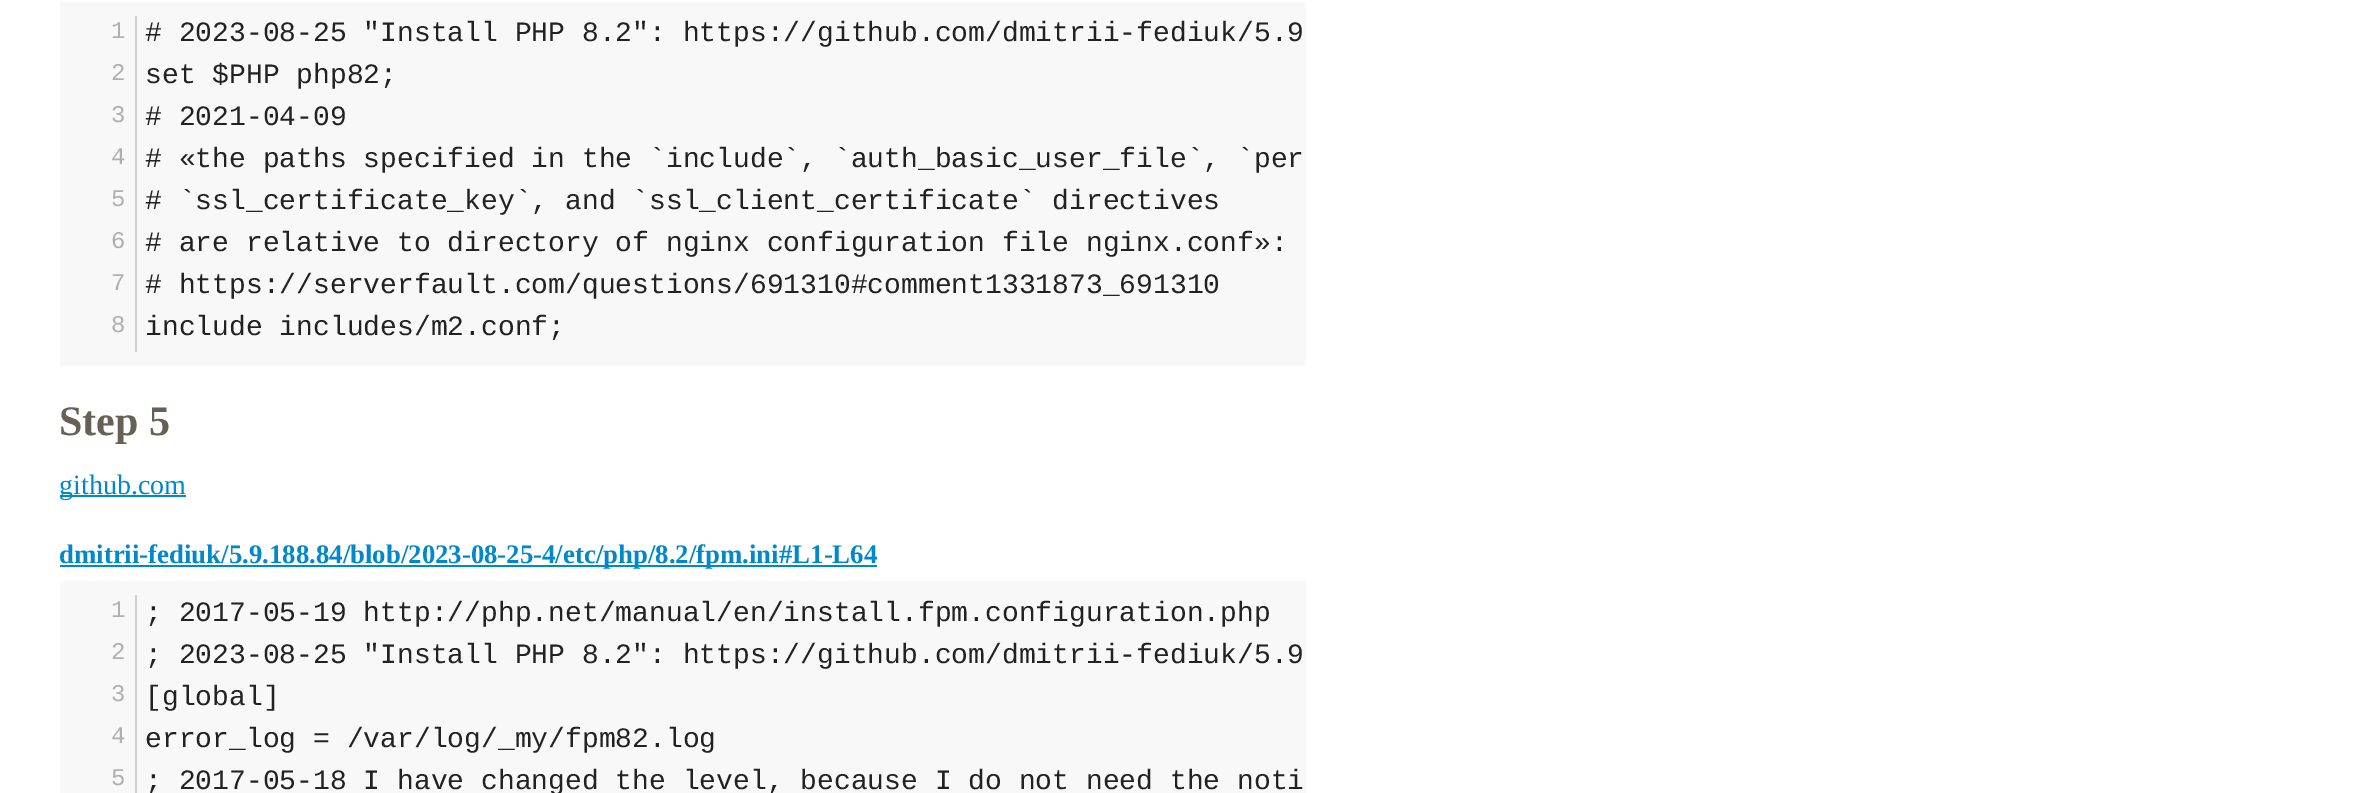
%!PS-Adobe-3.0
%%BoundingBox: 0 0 2361 793
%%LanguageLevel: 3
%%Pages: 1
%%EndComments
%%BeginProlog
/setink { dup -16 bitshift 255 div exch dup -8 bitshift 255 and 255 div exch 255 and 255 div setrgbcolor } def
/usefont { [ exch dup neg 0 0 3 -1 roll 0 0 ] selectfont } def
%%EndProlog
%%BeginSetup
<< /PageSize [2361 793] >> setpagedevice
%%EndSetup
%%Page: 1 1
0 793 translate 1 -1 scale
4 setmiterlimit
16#FFFFFF setink
0 0 2361 793 rectfill
16#F8F8F8 setink
60 2 1246 364 rectfill
16#CFCFCF setink
135 16 2 336 rectfill
/LiberationMono-Regular 24 usefont
16#AFAFAF setink
111 38 moveto (1) show
/LiberationMono-Regular 28 usefont
16#222222 setink
145 41 moveto (# 2023-08-25 "Install PHP 8.2": https://github.com/dmitrii-fediuk/5.9) show
/LiberationMono-Regular 24 usefont
16#AFAFAF setink
111 80 moveto (2) show
/LiberationMono-Regular 28 usefont
16#222222 setink
145 83 moveto (set $PHP php82;) show
/LiberationMono-Regular 24 usefont
16#AFAFAF setink
111 122 moveto (3) show
/LiberationMono-Regular 28 usefont
16#222222 setink
145 125 moveto (# 2021-04-09) show
/LiberationMono-Regular 24 usefont
16#AFAFAF setink
111 164 moveto (4) show
/LiberationMono-Regular 28 usefont
16#222222 setink
145 167 moveto (# «the paths specified in the `include`, `auth_basic_user_file`, `per) show
/LiberationMono-Regular 24 usefont
16#AFAFAF setink
111 206 moveto (5) show
/LiberationMono-Regular 28 usefont
16#222222 setink
145 209 moveto (# `ssl_certificate_key`, and `ssl_client_certificate` directives) show
/LiberationMono-Regular 24 usefont
16#AFAFAF setink
111 248 moveto (6) show
/LiberationMono-Regular 28 usefont
16#222222 setink
145 251 moveto (# are relative to directory of nginx configuration file nginx.conf»:) show
/LiberationMono-Regular 24 usefont
16#AFAFAF setink
111 290 moveto (7) show
/LiberationMono-Regular 28 usefont
16#222222 setink
145 293 moveto (# https://serverfault.com/questions/691310#comment1331873_691310) show
/LiberationMono-Regular 24 usefont
16#AFAFAF setink
111 332 moveto (8) show
/LiberationMono-Regular 28 usefont
16#222222 setink
145 335 moveto (include includes/m2.conf;) show
/LiberationSerif-Bold 42 usefont
16#676056 setink
59 435 moveto (Step 5) show
16#0088CC setink
60 495 126 2 rectfill
/LiberationSerif-Regular 28 usefont
59 494 moveto (github.com) show
60 565 817 2 rectfill
/LiberationSerif-Bold 26.8 usefont
59 563 moveto (dmitrii-fediuk/5.9.188.84/blob/2023-08-25-4/etc/php/8.2/fpm.ini#L1-L64) show
16#F8F8F8 setink
60 581 1246 212 rectfill
16#CFCFCF setink
135 595 2 198 rectfill
/LiberationMono-Regular 24 usefont
16#AFAFAF setink
111 617 moveto (1) show
/LiberationMono-Regular 28 usefont
16#222222 setink
145 621 moveto (; 2017-05-19 http://php.net/manual/en/install.fpm.configuration.php) show
/LiberationMono-Regular 24 usefont
16#AFAFAF setink
111 659 moveto (2) show
/LiberationMono-Regular 28 usefont
16#222222 setink
145 663 moveto (; 2023-08-25 "Install PHP 8.2": https://github.com/dmitrii-fediuk/5.9) show
/LiberationMono-Regular 24 usefont
16#AFAFAF setink
111 701 moveto (3) show
/LiberationMono-Regular 28 usefont
16#222222 setink
145 705 moveto ([global]) show
/LiberationMono-Regular 24 usefont
16#AFAFAF setink
111 743 moveto (4) show
/LiberationMono-Regular 28 usefont
16#222222 setink
145 747 moveto (error_log = /var/log/_my/fpm82.log) show
/LiberationMono-Regular 24 usefont
16#AFAFAF setink
111 785 moveto (5) show
/LiberationMono-Regular 28 usefont
16#222222 setink
145 789 moveto (; 2017-05-18 I have changed the level, because I do not need the noti) show
showpage
%%EOF
